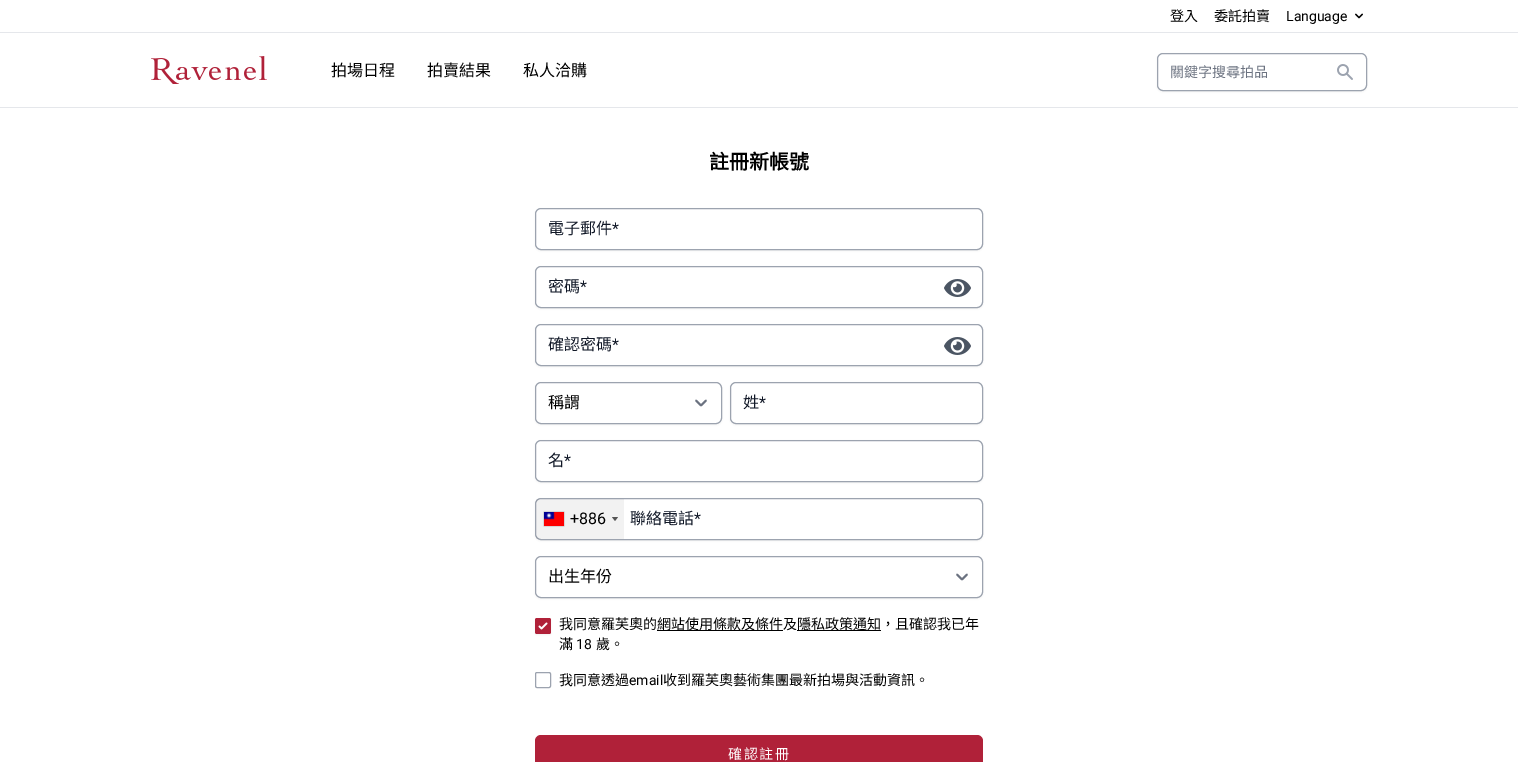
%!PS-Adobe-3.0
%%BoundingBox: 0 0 1518 762
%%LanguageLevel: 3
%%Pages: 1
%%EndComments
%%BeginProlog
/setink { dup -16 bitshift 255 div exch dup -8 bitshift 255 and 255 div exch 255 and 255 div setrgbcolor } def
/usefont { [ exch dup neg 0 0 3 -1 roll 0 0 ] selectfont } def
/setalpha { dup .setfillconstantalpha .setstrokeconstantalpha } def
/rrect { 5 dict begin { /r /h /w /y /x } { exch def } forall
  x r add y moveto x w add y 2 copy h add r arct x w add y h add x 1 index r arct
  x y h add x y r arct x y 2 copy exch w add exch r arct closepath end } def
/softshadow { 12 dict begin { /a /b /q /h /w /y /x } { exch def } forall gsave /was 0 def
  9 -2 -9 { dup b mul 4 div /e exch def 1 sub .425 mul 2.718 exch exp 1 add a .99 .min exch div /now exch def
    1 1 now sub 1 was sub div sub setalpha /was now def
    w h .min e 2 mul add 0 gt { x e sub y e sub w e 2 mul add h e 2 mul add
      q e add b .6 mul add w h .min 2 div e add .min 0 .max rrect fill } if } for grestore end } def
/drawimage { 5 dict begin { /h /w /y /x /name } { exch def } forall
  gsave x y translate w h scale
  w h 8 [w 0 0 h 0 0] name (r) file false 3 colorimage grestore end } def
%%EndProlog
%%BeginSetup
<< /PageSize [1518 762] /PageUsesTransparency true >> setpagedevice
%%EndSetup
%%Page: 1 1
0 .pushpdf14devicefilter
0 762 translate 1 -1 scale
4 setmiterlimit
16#FFFFFF setink
0 0 1518 762 rectfill
16#E5E7EB setink
0 32 1518 1 rectfill
/NotoSansCJKTC-Regular 14 usefont
16#000000 setink
1170 21 moveto (登入) show
1214 21 moveto (委託拍賣) show
/Roboto-Regular 14 usefont
1286 21 moveto (Language) show
(img1.raw) 1355 13 8 6 drawimage
16#E5E7EB setink
0 107 1518 1 rectfill
(img2.raw) 151 56 116 28 drawimage
/NotoSansCJKTC-Regular 16 usefont
16#000000 setink
[
    [(拍場日程) 331 76]
    [(拍賣結果) 427 76]
    [(私人洽購) 523 76]
] { aload pop moveto show } forall
1157 54 210 38 6 1 0.05 softshadow
16#FFFFFF setink
1157.5 53.5 209 37 5.5 rrect gsave fill grestore
16#9CA3AF setink
stroke
/NotoSansCJKTC-Regular 14 usefont
16#6B7280 setink
1170 77 moveto (關鍵字搜尋拍品) show
(img3.raw) 1337 64 16 16 drawimage
/NotoSansCJKTC-Bold 20 usefont
16#000000 setink
709 169 moveto (註冊新帳號) show
535 209 448 42 6 1 0.05 softshadow
16#FFFFFF setink
535.5 208.5 447 41 5.5 rrect gsave fill grestore
16#9CA3AF setink
stroke
/NotoSansCJKTC-Regular 16 usefont
16#111827 setink
548 234 moveto (電子郵件) show
/Roboto-Regular 16 usefont
612 234 moveto (*) show
16#000000 setink
535 267 448 42 6 1 0.05 softshadow
16#FFFFFF setink
535.5 266.5 447 41 5.5 rrect gsave fill grestore
16#9CA3AF setink
stroke
/NotoSansCJKTC-Regular 16 usefont
16#111827 setink
548 292 moveto (密碼) show
/Roboto-Regular 16 usefont
580 292 moveto (*) show
(img4.raw) 944 279 27 18 drawimage
16#000000 setink
535 325 448 42 6 1 0.05 softshadow
16#FFFFFF setink
535.5 324.5 447 41 5.5 rrect gsave fill grestore
16#9CA3AF setink
stroke
/NotoSansCJKTC-Regular 16 usefont
16#111827 setink
548 350 moveto (確認密碼) show
/Roboto-Regular 16 usefont
612 350 moveto (*) show
(img4.raw) 944 337 27 18 drawimage
16#000000 setink
535 383 187 42 6 1 0.05 softshadow
16#FFFFFF setink
535 382 187 42 6 rrect fill
16#6B7280 setink
1.8 setlinewidth
1 setlinecap
1 setlinejoin
696 400.5 moveto 701 405.5 lineto 706 400.5 lineto stroke
16#9CA3AF setink
1 setlinewidth
0 setlinecap
0 setlinejoin
535.5 382.5 186 41 5.5 rrect stroke
/NotoSansCJKTC-Regular 16 usefont
16#000000 setink
548 408 moveto (稱謂) show
730 383 253 42 6 1 0.05 softshadow
16#FFFFFF setink
730.5 382.5 252 41 5.5 rrect gsave fill grestore
16#9CA3AF setink
stroke
16#111827 setink
743 408 moveto (姓) show
/Roboto-Regular 16 usefont
759 408 moveto (*) show
16#000000 setink
535 441 448 42 6 1 0.05 softshadow
16#FFFFFF setink
535.5 440.5 447 41 5.5 rrect gsave fill grestore
16#9CA3AF setink
stroke
/NotoSansCJKTC-Regular 16 usefont
16#111827 setink
548 466 moveto (名) show
/Roboto-Regular 16 usefont
564 466 moveto (*) show
16#000000 setink
535 499 448 42 6 1 0.05 softshadow
16#FFFFFF setink
535.5 498.5 447 41 5.5 rrect gsave fill grestore
16#9CA3AF setink
stroke
0.05 setalpha
16#000000 setink
536 499 88 40 rectfill
1 setalpha
16#888888 setink
544 512 20 14 0 0.5 1 softshadow
(img5.raw) 544 512 20 14 drawimage
16#000000 setink
570 524 moveto (+886) show
16#555555 setink
612 517 moveto 618 517 lineto 615 521 lineto closepath fill
/NotoSansCJKTC-Regular 16 usefont
16#111827 setink
630 524 moveto (聯絡電話) show
/Roboto-Regular 16 usefont
694 524 moveto (*) show
16#000000 setink
535 557 448 42 6 1 0.05 softshadow
16#FFFFFF setink
535 556 448 42 6 rrect fill
16#6B7280 setink
1.8 setlinewidth
1 setlinecap
1 setlinejoin
957 574.5 moveto 962 579.5 lineto 967 574.5 lineto stroke
16#9CA3AF setink
1 setlinewidth
0 setlinecap
0 setlinejoin
535.5 556.5 447 41 5.5 rrect stroke
/NotoSansCJKTC-Regular 16 usefont
16#000000 setink
548 582 moveto (出生年份) show
535 619 16 16 2 1 0.05 softshadow
16#B02139 setink
535 618 16 16 2 rrect fill
(img6.raw) 538 622 10 8 drawimage
/NotoSansCJKTC-Regular 14 usefont
16#000000 setink
559 629 moveto (我同意羅芙奧的) show
657 630 126 1 rectfill
657 629 moveto (網站使用條款及條件及) show
797 630 84 1 rectfill
797 629 moveto (隱私政策通知，且確認我已年) show
559 649 moveto (滿) show
/Roboto-Regular 14 usefont
576 649 moveto (18) show
/NotoSansCJKTC-Regular 14 usefont
596 649 moveto (歲。) show
16#9CA3AF setink
535.5 672.5 15 15 1.5 rrect stroke
16#000000 setink
559 685 moveto (我同意透過) show
/Roboto-Regular 14 usefont
629 685 moveto (email) show
/NotoSansCJKTC-Regular 14 usefont
663 685 moveto (收到羅芙奧藝術集團最新拍場與活動資訊。) show
16#B02139 setink
535 735 448 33 6 rrect fill
16#FFFFFF setink
728 759 moveto 1.5 0 (確認註冊) ashow
.poppdf14devicefilter showpage
%%EOF
